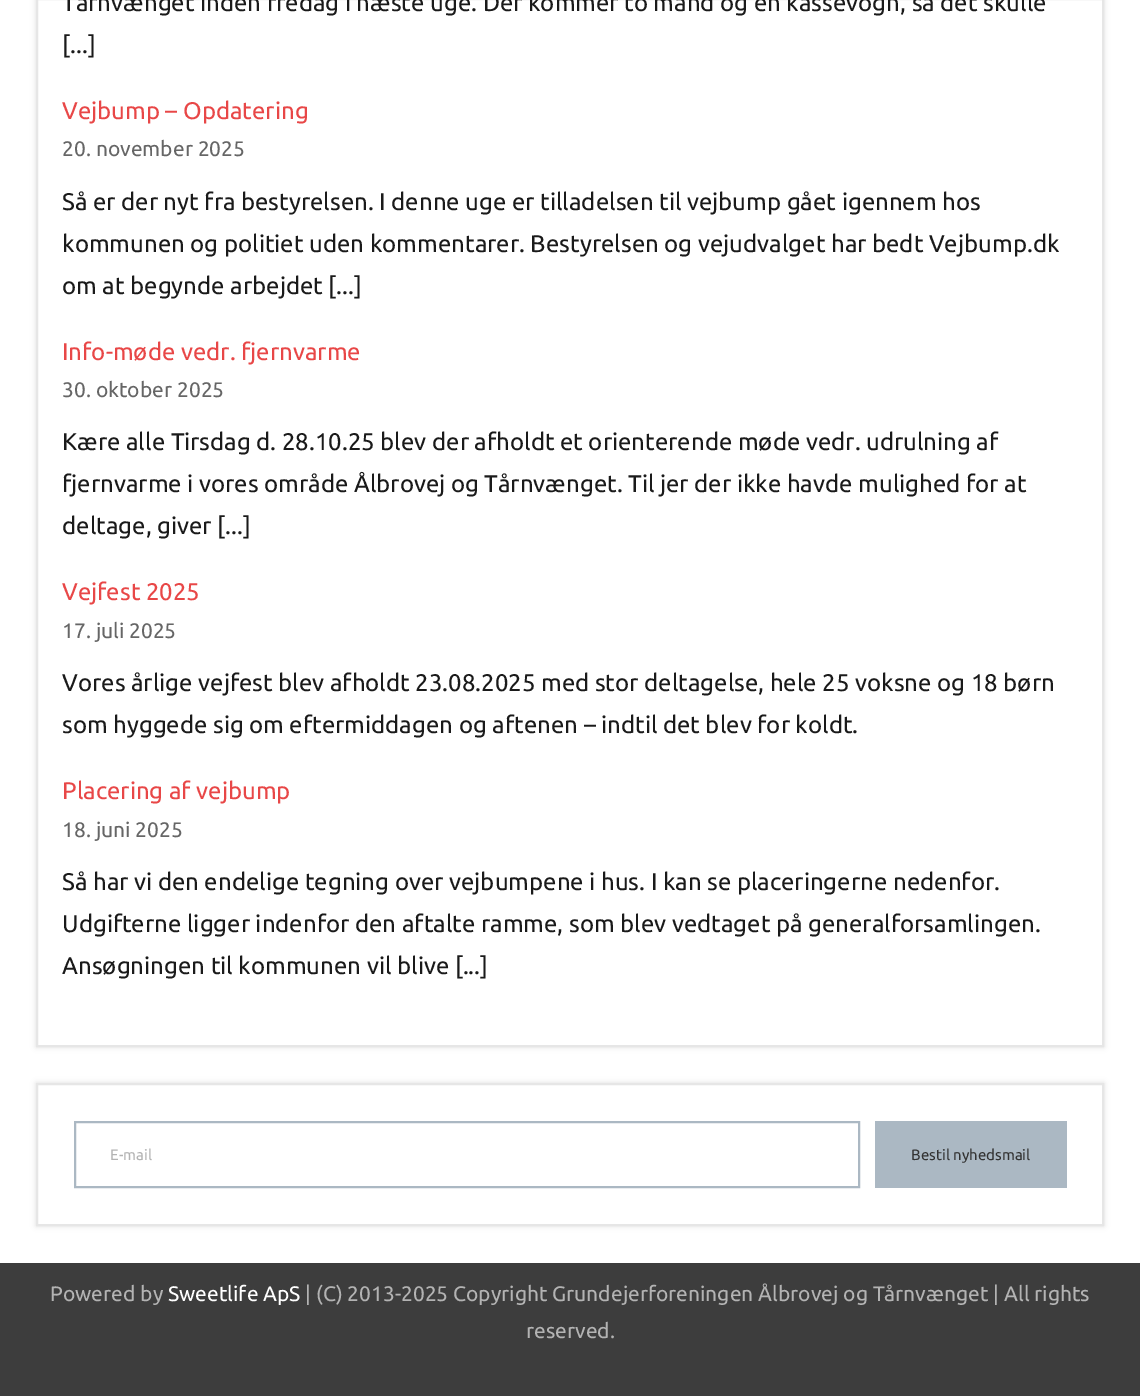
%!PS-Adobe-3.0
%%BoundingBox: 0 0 1140 1396
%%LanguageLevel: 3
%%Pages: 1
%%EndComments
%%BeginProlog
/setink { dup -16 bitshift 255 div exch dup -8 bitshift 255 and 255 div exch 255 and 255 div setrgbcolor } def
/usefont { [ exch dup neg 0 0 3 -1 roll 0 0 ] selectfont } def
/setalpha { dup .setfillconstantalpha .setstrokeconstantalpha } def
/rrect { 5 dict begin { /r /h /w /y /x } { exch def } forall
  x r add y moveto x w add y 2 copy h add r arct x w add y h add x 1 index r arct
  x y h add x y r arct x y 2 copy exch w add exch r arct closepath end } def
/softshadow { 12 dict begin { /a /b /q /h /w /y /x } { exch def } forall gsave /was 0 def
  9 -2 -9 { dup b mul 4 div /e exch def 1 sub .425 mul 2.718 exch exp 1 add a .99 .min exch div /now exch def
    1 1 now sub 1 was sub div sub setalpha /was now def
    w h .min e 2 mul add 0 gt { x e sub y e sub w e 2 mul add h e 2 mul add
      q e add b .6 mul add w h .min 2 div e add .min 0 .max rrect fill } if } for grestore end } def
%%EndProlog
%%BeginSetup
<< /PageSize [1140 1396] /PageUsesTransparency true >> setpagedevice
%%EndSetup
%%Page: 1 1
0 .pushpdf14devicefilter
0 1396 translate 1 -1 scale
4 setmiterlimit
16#FFFFFF setink
0 0 1140 1396 rectfill
gsave
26 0 moveto 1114 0 lineto 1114 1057 lineto 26 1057 lineto closepath 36 -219 moveto 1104 -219 lineto 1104 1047 lineto 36 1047 lineto closepath eoclip newpath
16#DDDDDD setink
36 -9 1068 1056 0 3 1 softshadow
grestore
16#E6E6E6 setink
2 setlinewidth
37 -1 1066 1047 rectstroke
/Ubuntu-Regular 24 usefont
16#1A1A1A setink
62 11 moveto (Tårnvænget inden fredag i næste uge. Der kommer to mand og en kassevogn, så det skulle) show
62 53 moveto ([...]) show
16#E84747 setink
62 119 moveto (Vejbump – Opdatering) show
/Ubuntu-Regular 21 usefont
16#666666 setink
62 156 moveto (20. november 2025) show
/Ubuntu-Regular 24 usefont
16#1A1A1A setink
[
    [(Så er der nyt fra bestyrelsen. I denne uge er tilladelsen til vejbump gået igennem hos) 62 210]
    [(kommunen og politiet uden kommentarer. Bestyrelsen og vejudvalget har bedt Vejbump.dk) 62 252]
    [(om at begynde arbejdet [...]) 62 294]
] { aload pop moveto show } forall
16#E84747 setink
62 360 moveto (Info-møde vedr. fjernvarme) show
/Ubuntu-Regular 21 usefont
16#666666 setink
62 397 moveto (30. oktober 2025) show
/Ubuntu-Regular 24 usefont
16#1A1A1A setink
[
    [(Kære alle Tirsdag d. 28.10.25 blev der afholdt et orienterende møde vedr. udrulning af) 62 450]
    [(fjernvarme i vores område Ålbrovej og Tårnvænget. Til jer der ikke havde mulighed for at) 62 492]
    [(deltage, giver [...]) 62 534]
] { aload pop moveto show } forall
16#E84747 setink
62 600 moveto (Vejfest 2025) show
/Ubuntu-Regular 21 usefont
16#666666 setink
62 638 moveto (17. juli 2025) show
/Ubuntu-Regular 24 usefont
16#1A1A1A setink
62 691 moveto (Vores årlige vejfest blev afholdt 23.08.2025 med stor deltagelse, hele 25 voksne og 18 børn) show
62 733 moveto (som hyggede sig om eftermiddagen og aftenen – indtil det blev for koldt.) show
16#E84747 setink
62 799 moveto (Placering af vejbump) show
/Ubuntu-Regular 21 usefont
16#666666 setink
62 837 moveto (18. juni 2025) show
/Ubuntu-Regular 24 usefont
16#1A1A1A setink
[
    [(Så har vi den endelige tegning over vejbumpene i hus. I kan se placeringerne nedenfor.) 62 890]
    [(Udgifterne ligger indenfor den aftalte ramme, som blev vedtaget på generalforsamlingen.) 62 932]
    [(Ansøgningen til kommunen vil blive [...]) 62 974]
] { aload pop moveto show } forall
16#DDDDDD setink
36 1083 1068 143 0 3 1 softshadow
16#FFFFFF setink
37 1084 moveto 1103 1084 lineto 1103 1225 lineto 37 1225 lineto closepath gsave fill grestore
16#E6E6E6 setink
stroke
16#ABB8C3 setink
75 1122 784 65 rectstroke
/Ubuntu-Regular 15 usefont
16#B3B3B3 setink
110 1160 moveto (E-mail) show
16#ABB8C3 setink
875 1121 192 67 rectfill
16#333333 setink
911 1160 moveto (Bestil nyhedsmail) show
16#3D3D3D setink
0 1263 1140 133 rectfill
/Ubuntu-Regular 21 usefont
16#B3B3B3 setink
50 1301 moveto (Powered by) show
16#FFFFFF setink
168 1301 moveto (Sweetlife ApS) show
16#B3B3B3 setink
305 1301 moveto (| \(C\) 2013-2025 Copyright Grundejerforeningen Ålbrovej og Tårnvænget | All rights) show
526 1338 moveto (reserved.) show
.poppdf14devicefilter showpage
%%EOF
